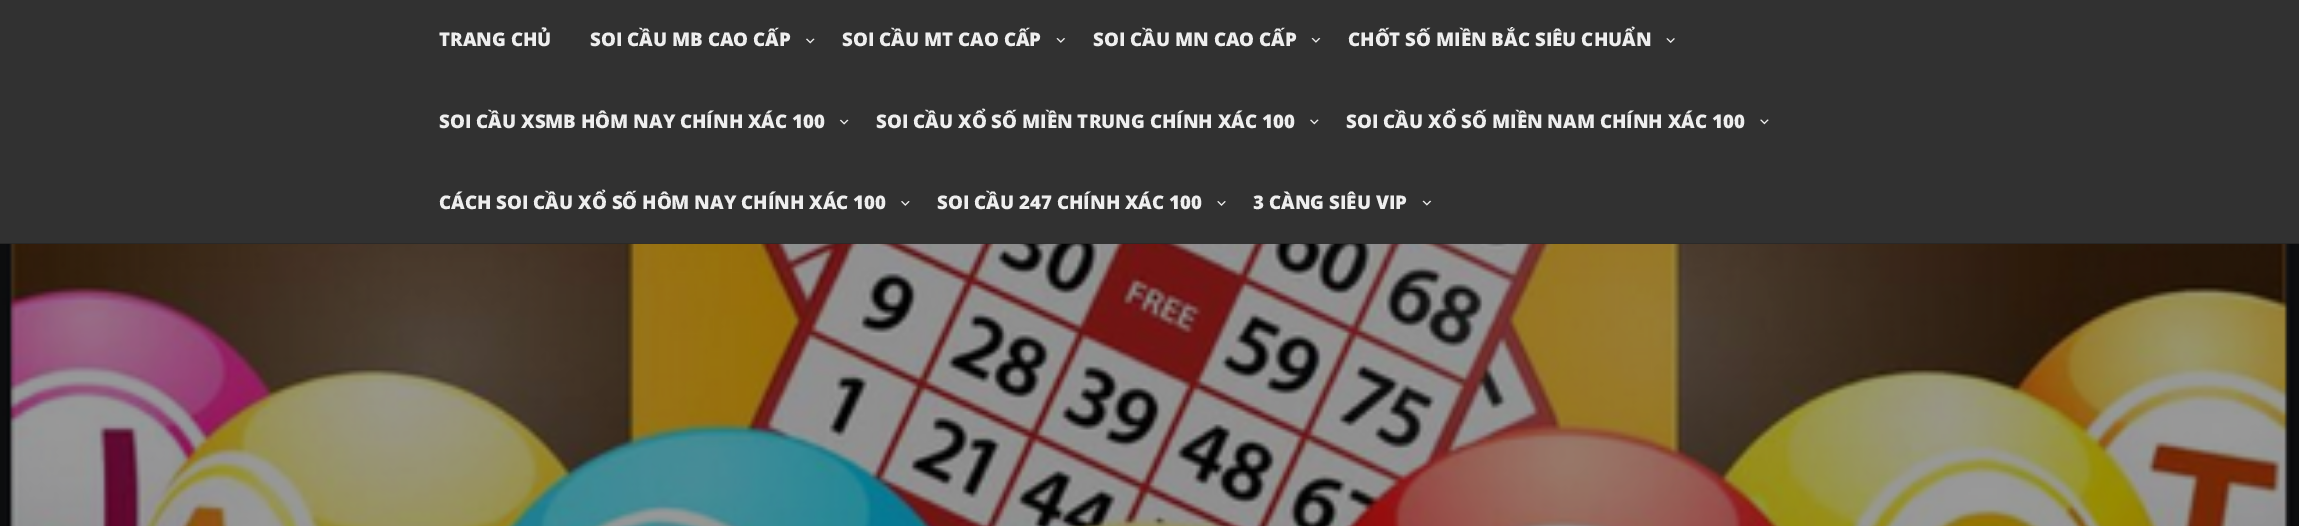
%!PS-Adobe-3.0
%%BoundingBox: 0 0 2299 526
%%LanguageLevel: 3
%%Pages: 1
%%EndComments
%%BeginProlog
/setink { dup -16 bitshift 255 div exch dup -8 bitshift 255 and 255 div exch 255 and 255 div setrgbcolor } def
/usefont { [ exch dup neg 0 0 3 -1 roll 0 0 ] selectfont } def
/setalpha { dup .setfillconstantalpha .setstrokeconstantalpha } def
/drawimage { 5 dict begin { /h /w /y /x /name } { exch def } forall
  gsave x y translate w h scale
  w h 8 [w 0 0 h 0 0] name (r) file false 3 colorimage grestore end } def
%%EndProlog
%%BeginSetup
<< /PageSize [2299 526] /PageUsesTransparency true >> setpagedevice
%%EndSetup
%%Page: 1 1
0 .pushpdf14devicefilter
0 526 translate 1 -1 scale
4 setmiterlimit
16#F7F7F7 setink
0 0 2299 526 rectfill
(img11.raw) 0 243 2299 283 drawimage
0.8 setalpha
16#000000 setink
0 0 2299 244 rectfill
/OpenSans-ExtraBold 18.75 usefont
1 setalpha
16#EEEEEE setink
439 46 moveto (TRANG CHỦ) show
590 46 moveto (SOI CẦU MB CAO CẤP) show
(img1.raw) 806 38 9 6 drawimage
842 46 moveto (SOI CẦU MT CAO CẤP) show
(img2.raw) 1056 38 10 5 drawimage
1093 46 moveto (SOI CẦU MN CAO CẤP) show
(img3.raw) 1311 37 10 6 drawimage
1348 46 moveto (CHỐT SỐ MIỀN BẮC SIÊU CHUẨN) show
(img4.raw) 1666 38 9 5 drawimage
439 128 moveto (SOI CẦU XSMB HÔM NAY CHÍNH XÁC 100) show
(img5.raw) 839 119 10 6 drawimage
876 128 moveto (SOI CẦU XỔ SỐ MIỀN TRUNG CHÍNH XÁC 100) show
(img6.raw) 1310 119 9 6 drawimage
1346 128 moveto (SOI CẦU XỔ SỐ MIỀN NAM CHÍNH XÁC 100) show
(img7.raw) 1760 119 9 6 drawimage
439 209 moveto (CÁCH SOI CẦU XỔ SỐ HÔM NAY CHÍNH XÁC 100) show
(img8.raw) 901 201 9 5 drawimage
937 209 moveto (SOI CẦU 247 CHÍNH XÁC 100) show
(img9.raw) 1217 201 9 5 drawimage
1253 209 moveto (3 CÀNG SIÊU VIP) show
(img10.raw) 1422 200 10 6 drawimage
.poppdf14devicefilter showpage
%%EOF
